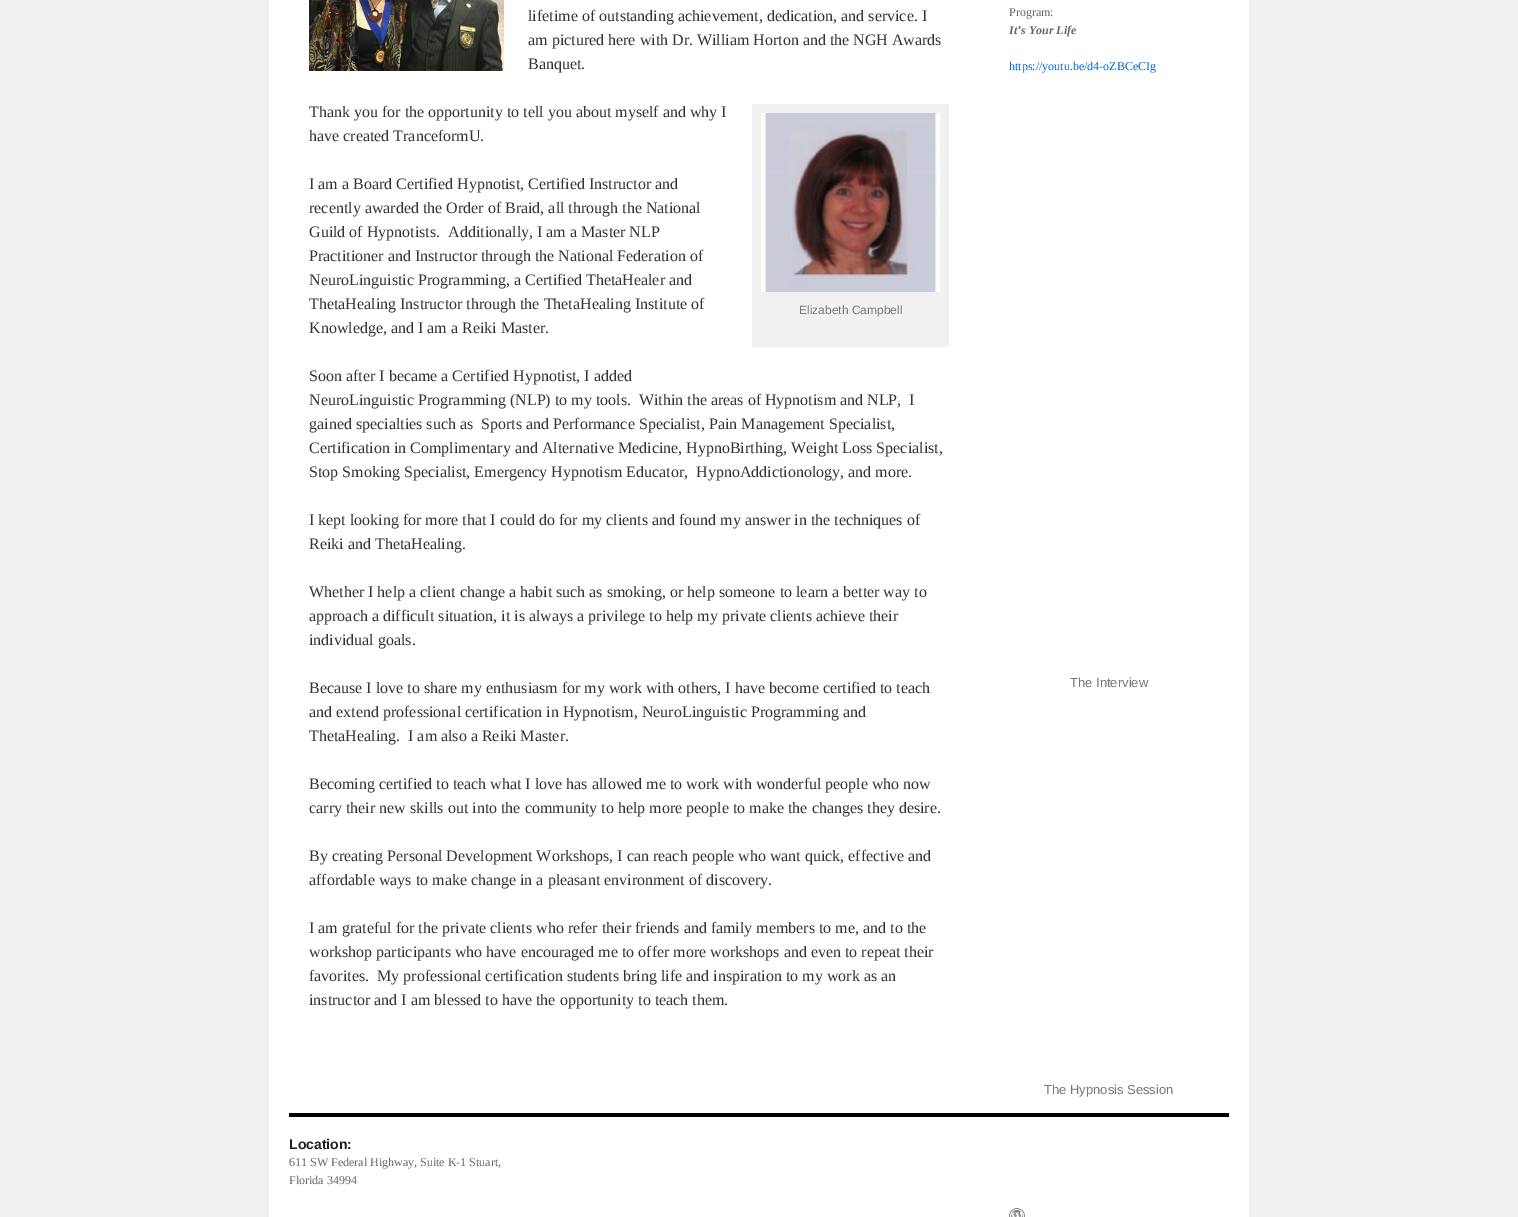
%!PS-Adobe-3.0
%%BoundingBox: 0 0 1518 1217
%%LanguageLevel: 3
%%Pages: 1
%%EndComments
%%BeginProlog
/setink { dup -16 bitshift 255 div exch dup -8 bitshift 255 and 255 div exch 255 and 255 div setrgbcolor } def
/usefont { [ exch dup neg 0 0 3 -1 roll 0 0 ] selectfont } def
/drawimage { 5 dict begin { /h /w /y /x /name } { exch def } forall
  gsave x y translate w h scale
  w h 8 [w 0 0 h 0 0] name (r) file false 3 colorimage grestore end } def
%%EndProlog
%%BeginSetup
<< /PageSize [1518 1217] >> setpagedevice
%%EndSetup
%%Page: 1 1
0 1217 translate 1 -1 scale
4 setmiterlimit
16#F1F1F1 setink
0 0 1518 1217 rectfill
16#FFFFFF setink
269 0 980 1217 rectfill
(img1.raw) 309 0 195 71 drawimage
/LiberationSerif-Regular 16 usefont
16#333333 setink
[
    [(lifetime of outstanding achievement, dedication, and service. I) 528 21]
    [(am pictured here with Dr. William Horton and the NGH Awards) 528 45]
    [(Banquet.) 528 69]
    [(Thank you for the opportunity to tell you about myself and why I) 309 117]
    [(have created TranceformU.) 309 141]
    [(I am a Board Certified Hypnotist, Certified Instructor and) 309 189]
    [(recently awarded the Order of Braid, all through the National) 309 213]
    [(Guild of Hypnotists.  Additionally, I am a Master NLP) 309 237]
    [(Practitioner and Instructor through the National Federation of) 309 261]
    [(NeuroLinguistic Programming, a Certified ThetaHealer and) 309 285]
    [(ThetaHealing Instructor through the ThetaHealing Institute of) 309 309]
    [(Knowledge, and I am a Reiki Master.) 309 333]
] { aload pop moveto show } forall
16#F1F1F1 setink
752 104 197 243 rectfill
(img2.raw) 761 113 179 179 drawimage
/LiberationSans-Regular 12 usefont
16#777777 setink
799 314 moveto (Elizabeth Campbell) show
/LiberationSerif-Regular 16 usefont
16#333333 setink
[
    [(Soon after I became a Certified Hypnotist, I added) 309 381]
    [(NeuroLinguistic Programming \(NLP\) to my tools.  Within the areas of Hypnotism and NLP,  I) 309 405]
    [(gained specialties such as  Sports and Performance Specialist, Pain Management Specialist,) 309 429]
    [(Certification in Complimentary and Alternative Medicine, HypnoBirthing, Weight Loss Specialist,) 309 453]
    [(Stop Smoking Specialist, Emergency Hypnotism Educator,  HypnoAddictionology, and more.) 309 477]
    [(I kept looking for more that I could do for my clients and found my answer in the techniques of) 309 525]
    [(Reiki and ThetaHealing.) 309 549]
    [(Whether I help a client change a habit such as smoking, or help someone to learn a better way to) 309 597]
    [(approach a difficult situation, it is always a privilege to help my private clients achieve their) 309 621]
    [(individual goals.) 309 645]
    [(Because I love to share my enthusiasm for my work with others, I have become certified to teach) 309 693]
    [(and extend professional certification in Hypnotism, NeuroLinguistic Programming and) 309 717]
    [(ThetaHealing.  I am also a Reiki Master.) 309 741]
    [(Becoming certified to teach what I love has allowed me to work with wonderful people who now) 309 789]
    [(carry their new skills out into the community to help more people to make the changes they desire.) 309 813]
    [(By creating Personal Development Workshops, I can reach people who want quick, effective and) 309 861]
    [(affordable ways to make change in a pleasant environment of discovery.) 309 885]
    [(I am grateful for the private clients who refer their friends and family members to me, and to the) 309 933]
    [(workshop participants who have encouraged me to offer more workshops and even to repeat their) 309 957]
    [(favorites.  My professional certification students bring life and inspiration to my work as an) 309 981]
    [(instructor and I am blessed to have the opportunity to teach them.) 309 1005]
] { aload pop moveto show } forall
/LiberationSerif-Regular 12 usefont
16#666666 setink
1009 16 moveto (Program:) show
/LiberationSerif-BoldItalic 12 usefont
1009 34 moveto (It’s Your Life) show
/LiberationSerif-Regular 12 usefont
16#0066CC setink
1009 70 moveto (https://youtu.be/d4-oZBCeCIg) show
/LiberationSans-Regular 13 usefont
16#777777 setink
1070 687 moveto (The Interview) show
1044 1094 moveto (The Hypnosis Session) show
16#000000 setink
289 1113 940 4 rectfill
/LiberationSans-Bold 14 usefont
16#222222 setink
289 1149 moveto (Location:) show
/LiberationSerif-Regular 12 usefont
16#666666 setink
289 1166 moveto (611 SW Federal Highway, Suite K-1 Stuart,) show
289 1184 moveto (Florida 34994) show
(img3.raw) 1009 1208 16 9 drawimage
showpage
%%EOF
